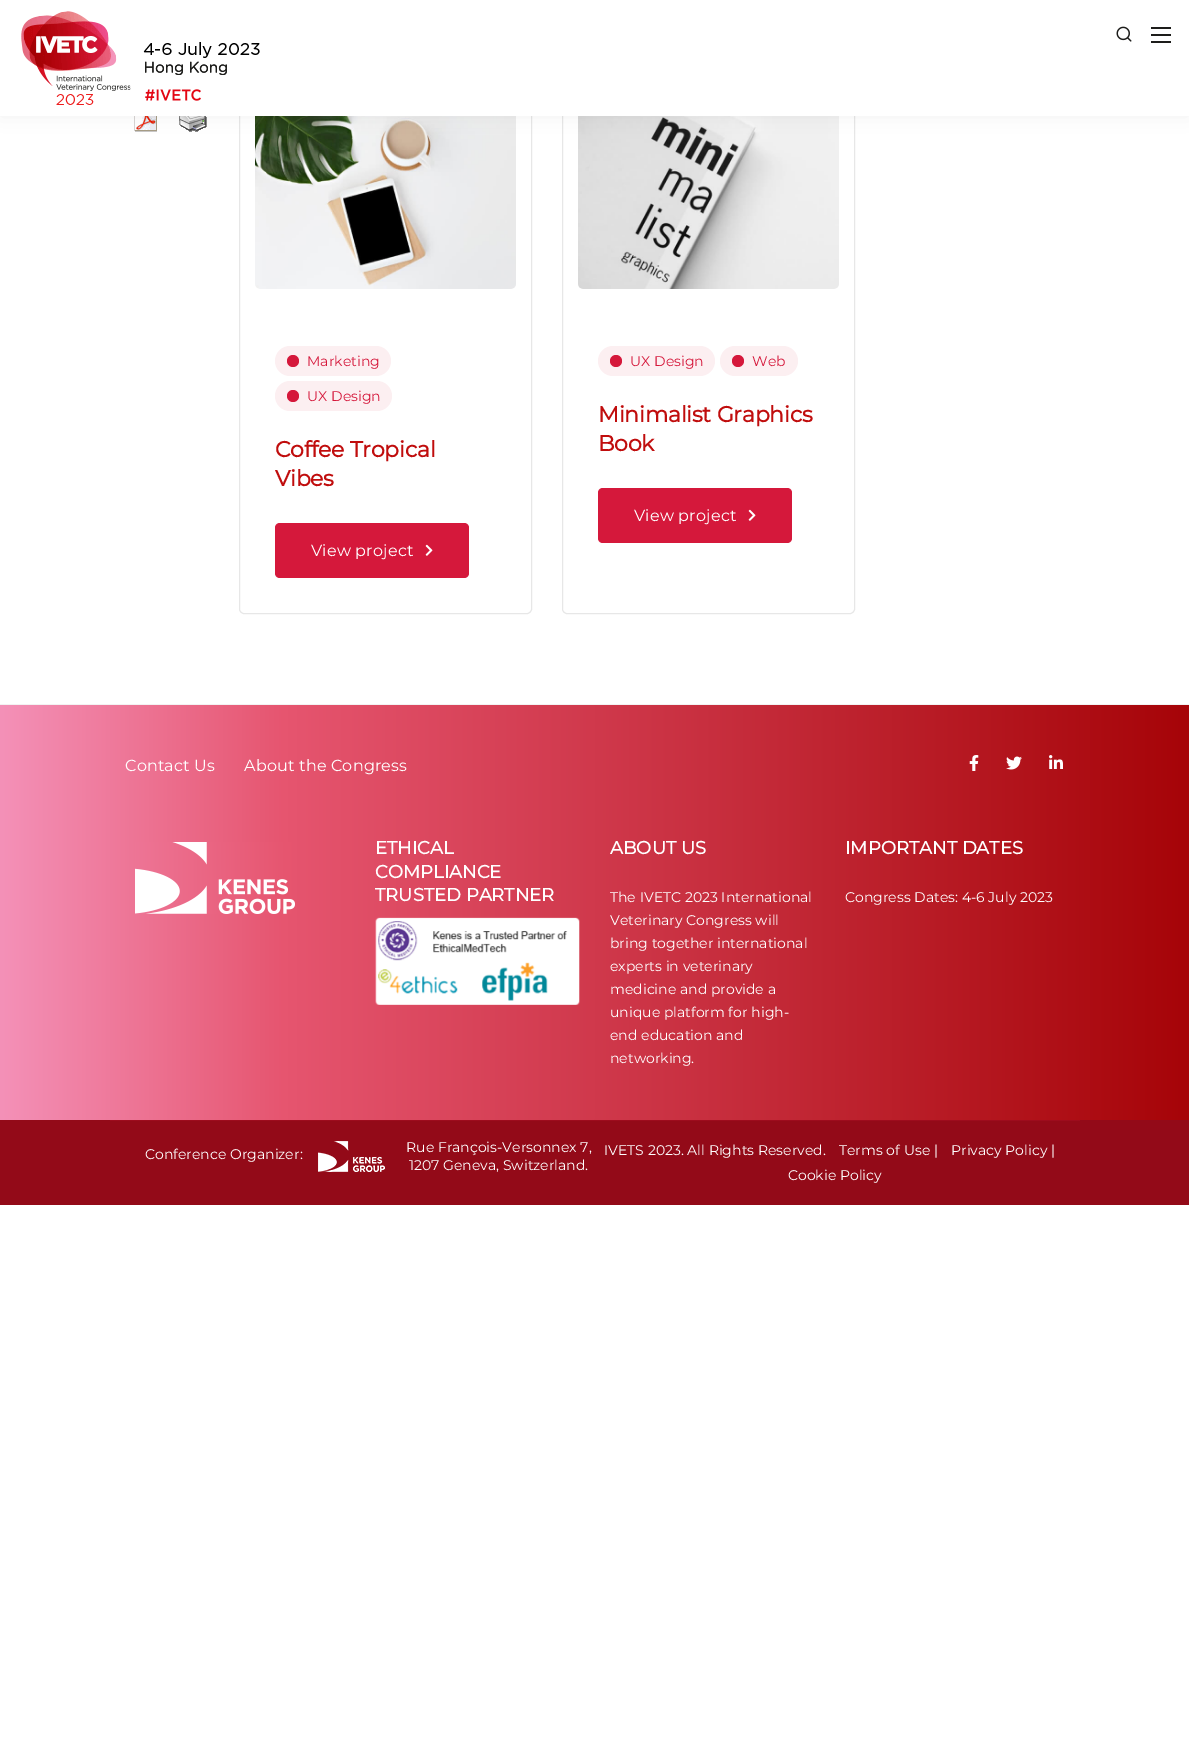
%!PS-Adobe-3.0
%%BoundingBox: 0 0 1189 1746
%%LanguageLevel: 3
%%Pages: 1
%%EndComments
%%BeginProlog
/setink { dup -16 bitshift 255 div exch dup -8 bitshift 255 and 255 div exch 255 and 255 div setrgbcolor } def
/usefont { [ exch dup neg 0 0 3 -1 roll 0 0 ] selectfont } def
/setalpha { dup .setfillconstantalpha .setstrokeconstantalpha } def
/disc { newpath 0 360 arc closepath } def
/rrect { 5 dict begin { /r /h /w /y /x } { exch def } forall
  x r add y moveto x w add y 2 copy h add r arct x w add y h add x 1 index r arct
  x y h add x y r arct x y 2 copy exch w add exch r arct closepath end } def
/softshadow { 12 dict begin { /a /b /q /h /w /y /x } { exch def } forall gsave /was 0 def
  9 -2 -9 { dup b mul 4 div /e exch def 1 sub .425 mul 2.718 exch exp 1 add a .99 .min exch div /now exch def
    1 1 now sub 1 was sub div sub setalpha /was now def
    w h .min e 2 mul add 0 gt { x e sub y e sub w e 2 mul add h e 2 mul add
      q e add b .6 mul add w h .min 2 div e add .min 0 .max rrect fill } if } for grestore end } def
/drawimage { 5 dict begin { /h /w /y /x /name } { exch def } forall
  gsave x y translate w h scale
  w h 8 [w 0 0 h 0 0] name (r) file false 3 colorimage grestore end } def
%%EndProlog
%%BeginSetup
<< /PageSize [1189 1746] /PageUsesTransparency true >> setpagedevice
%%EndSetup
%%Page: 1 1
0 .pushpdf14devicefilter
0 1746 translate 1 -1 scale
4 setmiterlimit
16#FFFFFF setink
0 0 1189 1746 rectfill
(img3.raw) 134 116 23 16 drawimage
(img4.raw) 179 116 28 16 drawimage
16#E7E7E7 setink
239.5 90.5 292 523 4.5 rrect stroke
(img5.raw) 255 116 261 173 drawimage
562.5 90.5 292 523 4.5 rrect stroke
(img7.raw) 578 116 261 173 drawimage
16#000000 setink
0 0 1189 116 0 10 0.05 softshadow
16#FFFFFF setink
0 0 1189 116 rectfill
(img1.raw) 21 11 239 94 drawimage
(img2.raw) 1116 26 16 16 drawimage
[
    [1151 41 20 2 16#1D1D1B]
    [1151 27 20 2 16#1D1D1B]
    [1151 34 20 2 16#1D1D1B]
] { aload pop setink rectfill } forall
16#FCEFF1 setink
275 346 116 30 15 rrect fill
16#D5183B setink
293 361 6 disc fill
/Montserrat-Thin 14 usefont
307 366 moveto (Marketing) show
16#FCEFF1 setink
275 381 117 30 15 rrect fill
16#D5183B setink
293 396 6 disc fill
307 401 moveto (UX Design) show
/Montserrat-Bold 22 usefont
16#C00D0D setink
275 457 moveto -0.25 0 (Coffee Tropical) ashow
275 486 moveto -0.25 0 (Vibes) ashow
16#D5183B setink
280 523 moveto 464 523 lineto 467 523 469 525 469 528 curveto 469 573 lineto 469 576 467 578 464 578 curveto 280 578 lineto 277 578 275 576 275 573 curveto 275 528 lineto 275 525 277 523 280 523 curveto closepath fill
/Montserrat-Thin 16 usefont
16#FFFFFF setink
311 556 moveto 0.2 0 (View project) ashow
(img6.raw) 425 544 8 12 drawimage
16#FCEFF1 setink
598 346 117 30 15 rrect fill
16#D5183B setink
616 361 6 disc fill
/Montserrat-Thin 14 usefont
630 366 moveto (UX Design) show
16#FCEFF1 setink
720 346 78 30 15 rrect fill
16#D5183B setink
738 361 6 disc fill
752 366 moveto (Web) show
/Montserrat-Bold 22 usefont
16#C00D0D setink
598 422 moveto -0.25 0 (Minimalist Graphics) ashow
598 451 moveto -0.25 0 (Book) ashow
16#D5183B setink
603 488 moveto 787 488 lineto 790 488 792 490 792 493 curveto 792 538 lineto 792 541 790 543 787 543 curveto 603 543 lineto 600 543 598 541 598 538 curveto 598 493 lineto 598 490 600 488 603 488 curveto closepath fill
/Montserrat-Thin 16 usefont
16#FFFFFF setink
634 521 moveto 0.2 0 (View project) ashow
(img6.raw) 748 509 8 12 drawimage
gsave 0 705 moveto 1189 705 lineto 1189 1120 lineto 0 1120 lineto closepath clip newpath
<< /ShadingType 2 /ColorSpace /DeviceRGB /Coords [0 913 1189 913] /Extend [true true] /Function << /FunctionType 3 /Domain [0 1] /Functions [<< /FunctionType 2 /Domain [0 1] /C0 [0.957 0.569 0.722] /C1 [0.902 0.333 0.435] /N 1 >> << /FunctionType 2 /Domain [0 1] /C0 [0.902 0.333 0.435] /C1 [0.651 0.016 0.031] /N 1 >>] /Bounds [0.24] /Encode [0 1 0 1] >> >> shfill grestore
16#F2F2F2 setink
0 704 1189 1 rectfill
16#FFFFFF setink
125 771 moveto 0.2 0 (Contact Us) ashow
244 771 moveto 0.2 0 (About the Congress) ashow
(img8.raw) 969 755 10 16 drawimage
(img9.raw) 1006 756 16 14 drawimage
(img10.raw) 1049 755 14 14 drawimage
(img11.raw) 135 842 160 72 drawimage
/Montserrat-Bold 18 usefont
[
    [(ETHICAL) 375 854]
    [(COMPLIANCE) 375 878]
    [(TRUSTED PARTNER) 375 901]
] { aload pop moveto show } forall
(img12.raw) 375 917 205 88 drawimage
610 854 moveto (ABOUT US) show
/Montserrat-Thin 14 usefont
[
    [(The IVETC 2023 International) 610 902]
    [(Veterinary Congress will) 610 925]
    [(bring together international) 610 948]
    [(experts in veterinary) 610 971]
    [(medicine and provide a) 610 994]
    [(unique platform for high-) 610 1017]
    [(end education and) 610 1040]
    [(networking.) 610 1063]
] { aload pop moveto show } forall
/Montserrat-Bold 18 usefont
845 854 moveto (IMPORTANT DATES) show
/Montserrat-Thin 14 usefont
845 902 moveto (Congress Dates: 4-6 July 2023) show
16#930A18 setink
0 1120 1189 85 rectfill
16#9D0C1D setink
110 1120 970 1 rectfill
16#FFFFFF setink
145 1159 moveto (Conference Organizer:) show
(img13.raw) 318 1141 67 31 drawimage
[
    [(Rue François-Versonnex 7,) 406 1152]
    [(1207 Geneva, Switzerland.) 409 1170]
    [(IVETS 2023. All Rights Reserved.) 604 1155]
    [(Terms of Use |) 839 1155]
    [(Privacy Policy |) 951 1155]
    [(Cookie Policy) 788 1180]
] { aload pop moveto show } forall
.poppdf14devicefilter showpage
%%EOF
